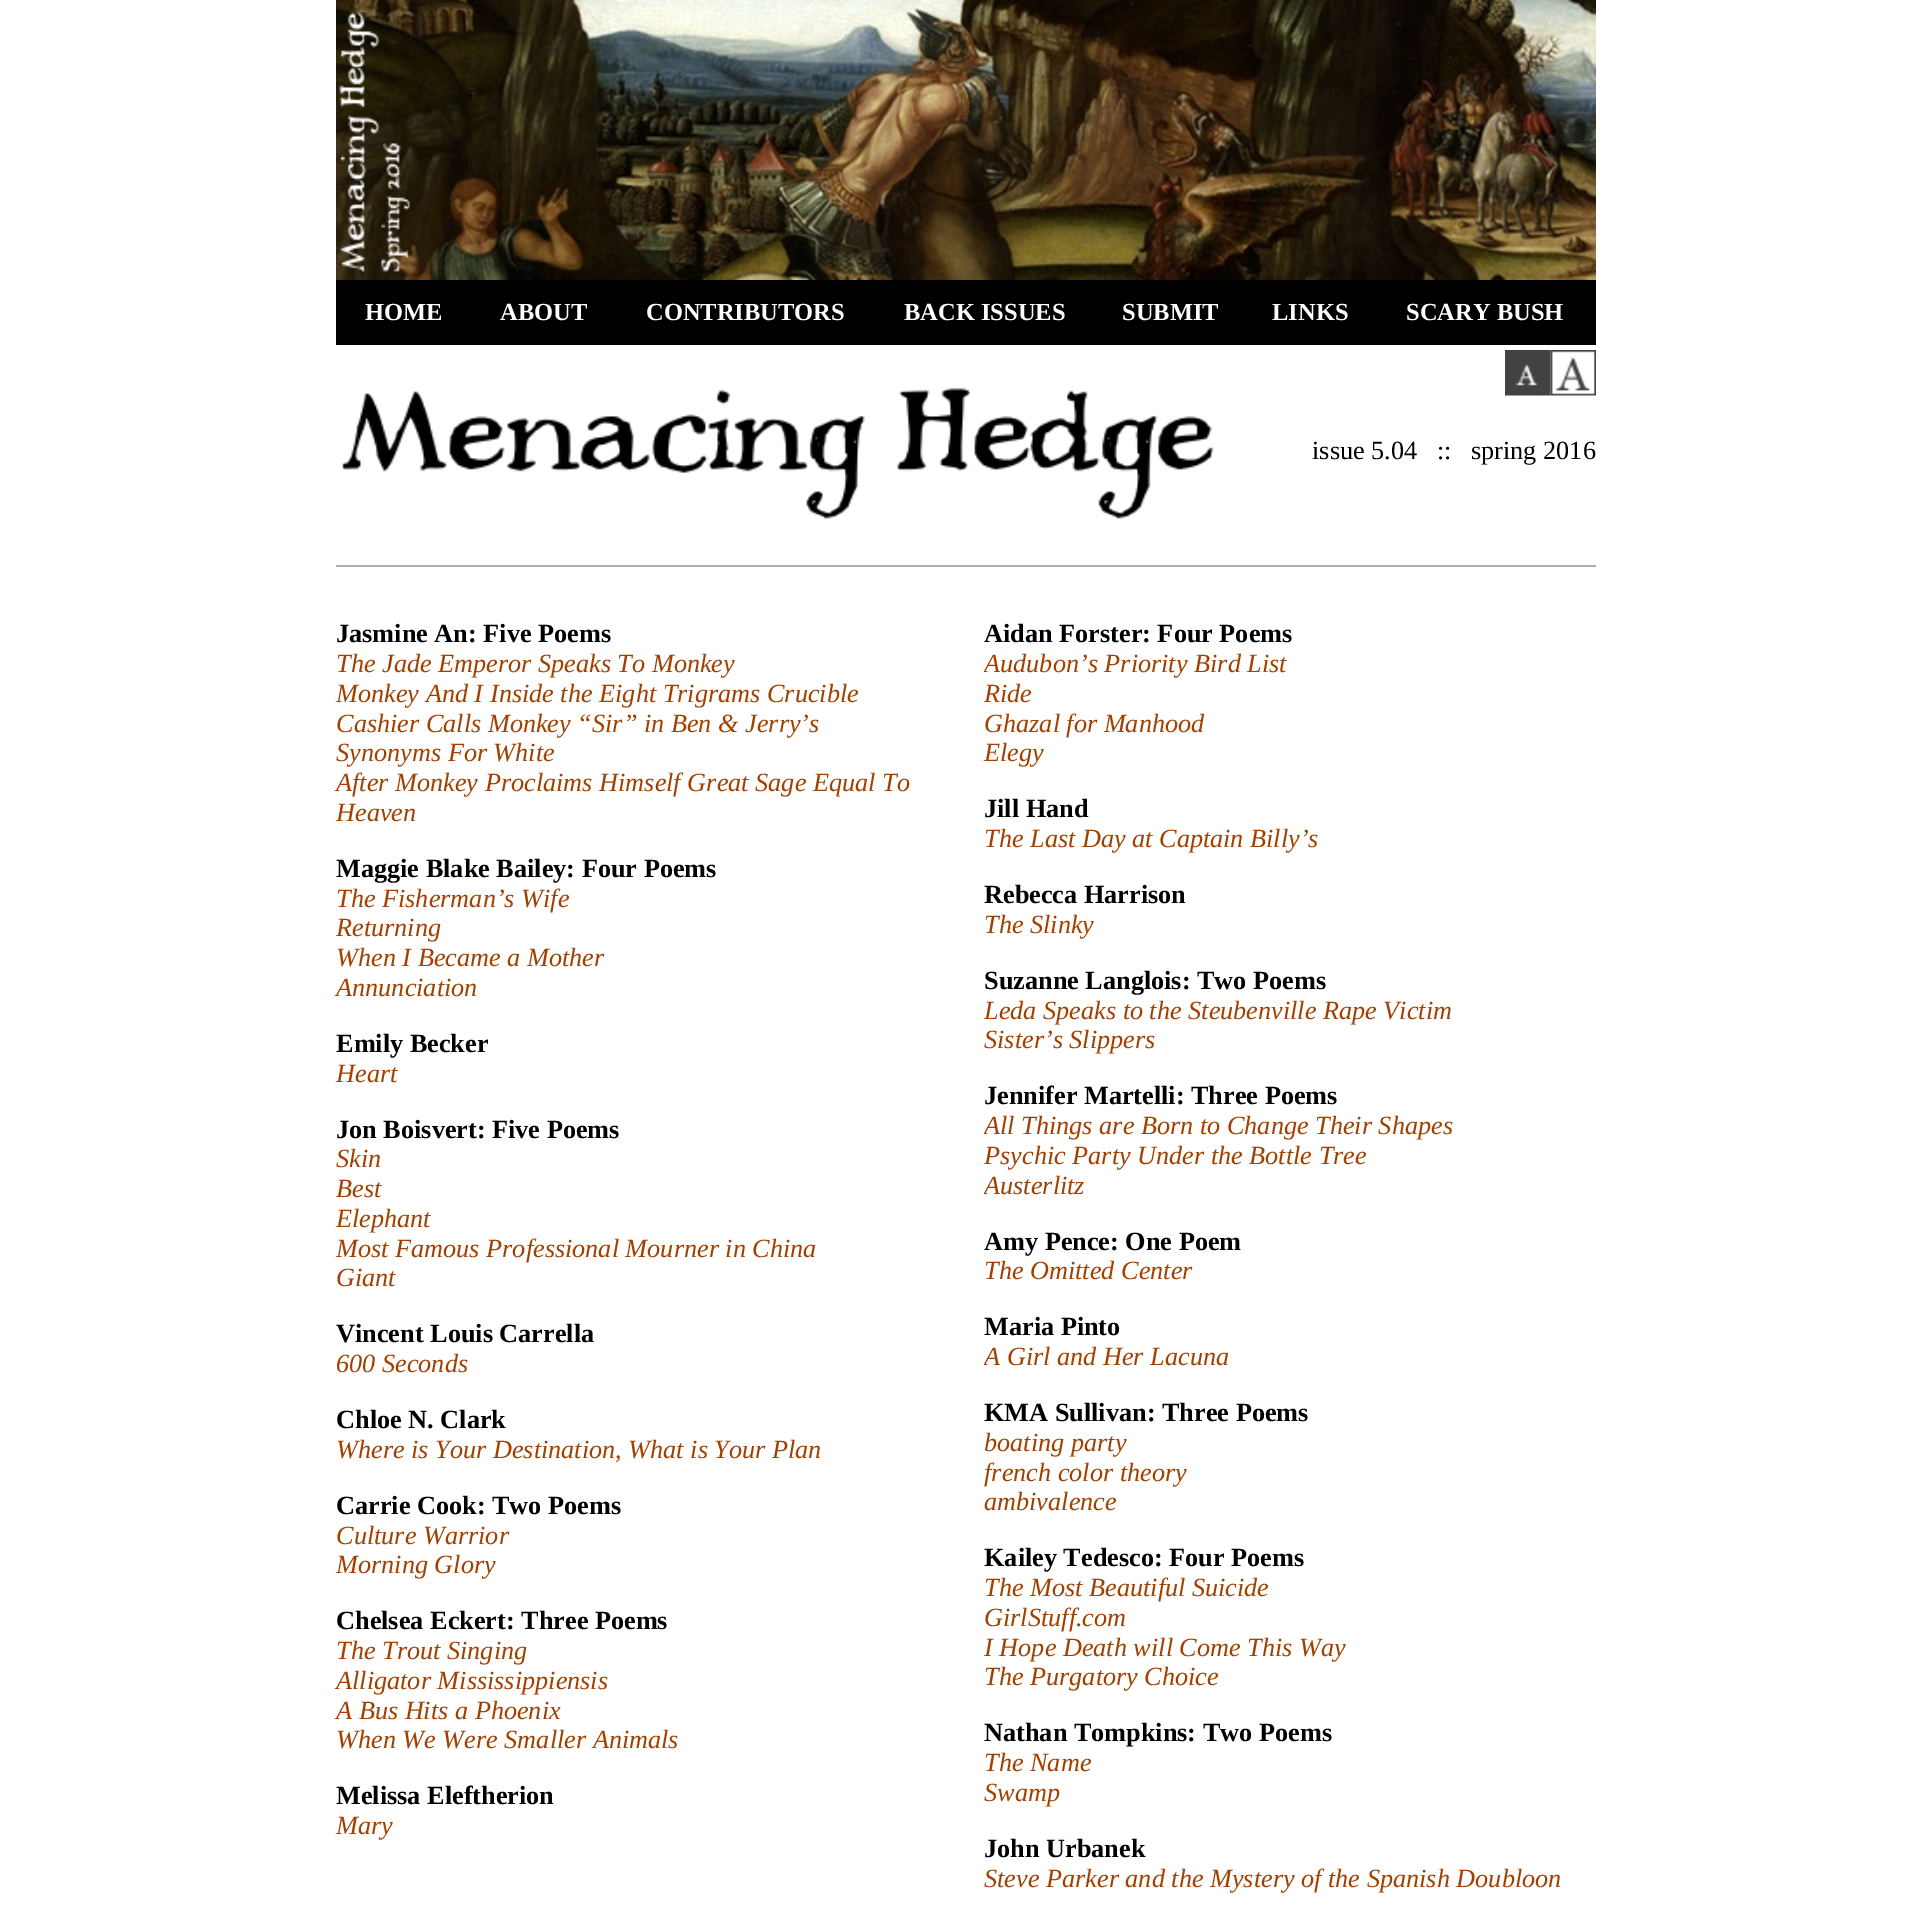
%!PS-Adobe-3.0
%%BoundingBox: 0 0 1932 1924
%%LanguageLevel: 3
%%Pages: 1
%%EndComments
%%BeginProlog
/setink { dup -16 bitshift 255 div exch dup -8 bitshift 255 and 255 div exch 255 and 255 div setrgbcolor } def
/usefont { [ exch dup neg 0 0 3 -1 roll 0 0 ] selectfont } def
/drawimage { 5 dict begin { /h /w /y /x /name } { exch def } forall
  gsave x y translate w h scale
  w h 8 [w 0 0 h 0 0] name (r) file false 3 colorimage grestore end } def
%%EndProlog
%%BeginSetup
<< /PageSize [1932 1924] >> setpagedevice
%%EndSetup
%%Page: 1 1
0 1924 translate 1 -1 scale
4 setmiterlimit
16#FFFFFF setink
0 0 1932 1924 rectfill
(img1.raw) 336 0 1260 280 drawimage
(img2.raw) 339 11 71 261 drawimage
16#000000 setink
336 280 1260 65 rectfill
/LiberationSerif-Bold 24.5 usefont
16#FFFFFF setink
[
    [(HOME) 365 320]
    [(ABOUT) 500 320]
    [(CONTRIBUTORS) 646 320]
    [(BACK ISSUES) 904 320]
    [(SUBMIT) 1122 320]
    [(LINKS) 1272 320]
    [(SCARY BUSH) 1406 320]
] { aload pop moveto show } forall
(img3.raw) 1505 350 46 46 drawimage
(img4.raw) 1550 350 46 46 drawimage
(img5.raw) 341 388 873 131 drawimage
/LiberationSerif-Regular 26.25 usefont
16#000000 setink
1312 459 moveto (issue 5.04   ::   spring 2016) show
16#B0B0B0 setink
336 565 1260 2 rectfill
/LiberationSerif-Bold 26.25 usefont
16#000000 setink
336 642 moveto (Jasmine An: Five Poems) show
/LiberationSerif-Italic 26.25 usefont
16#A24000 setink
[
    [(The Jade Emperor Speaks To Monkey) 336 672]
    [(Monkey And I Inside the Eight Trigrams Crucible) 336 702]
    [(Cashier Calls Monkey “Sir” in Ben & Jerry’s) 336 732]
    [(Synonyms For White) 336 761]
    [(After Monkey Proclaims Himself Great Sage Equal To) 336 791]
    [(Heaven) 336 821]
] { aload pop moveto show } forall
/LiberationSerif-Bold 26.25 usefont
16#000000 setink
336 877 moveto (Maggie Blake Bailey: Four Poems) show
/LiberationSerif-Italic 26.25 usefont
16#A24000 setink
[
    [(The Fisherman’s Wife) 336 907]
    [(Returning) 336 936]
    [(When I Became a Mother) 336 966]
    [(Annunciation) 336 996]
] { aload pop moveto show } forall
/LiberationSerif-Bold 26.25 usefont
16#000000 setink
336 1052 moveto (Emily Becker) show
/LiberationSerif-Italic 26.25 usefont
16#A24000 setink
336 1082 moveto (Heart) show
/LiberationSerif-Bold 26.25 usefont
16#000000 setink
336 1138 moveto (Jon Boisvert: Five Poems) show
/LiberationSerif-Italic 26.25 usefont
16#A24000 setink
[
    [(Skin) 336 1167]
    [(Best) 336 1197]
    [(Elephant) 336 1227]
    [(Most Famous Professional Mourner in China) 336 1257]
    [(Giant) 336 1286]
] { aload pop moveto show } forall
/LiberationSerif-Bold 26.25 usefont
16#000000 setink
336 1342 moveto (Vincent Louis Carrella) show
/LiberationSerif-Italic 26.25 usefont
16#A24000 setink
336 1372 moveto (600 Seconds) show
/LiberationSerif-Bold 26.25 usefont
16#000000 setink
336 1428 moveto (Chloe N. Clark) show
/LiberationSerif-Italic 26.25 usefont
16#A24000 setink
336 1458 moveto (Where is Your Destination, What is Your Plan) show
/LiberationSerif-Bold 26.25 usefont
16#000000 setink
336 1514 moveto (Carrie Cook: Two Poems) show
/LiberationSerif-Italic 26.25 usefont
16#A24000 setink
336 1544 moveto (Culture Warrior) show
336 1573 moveto (Morning Glory) show
/LiberationSerif-Bold 26.25 usefont
16#000000 setink
336 1629 moveto (Chelsea Eckert: Three Poems) show
/LiberationSerif-Italic 26.25 usefont
16#A24000 setink
[
    [(The Trout Singing) 336 1659]
    [(Alligator Mississippiensis) 336 1689]
    [(A Bus Hits a Phoenix) 336 1719]
    [(When We Were Smaller Animals) 336 1748]
] { aload pop moveto show } forall
/LiberationSerif-Bold 26.25 usefont
16#000000 setink
336 1804 moveto (Melissa Eleftherion) show
/LiberationSerif-Italic 26.25 usefont
16#A24000 setink
336 1834 moveto (Mary) show
/LiberationSerif-Bold 26.25 usefont
16#000000 setink
984 642 moveto (Aidan Forster: Four Poems) show
gsave
984 620 612 1300 rectclip
/LiberationSerif-Italic 26.25 usefont
16#A24000 setink
984 672 moveto (Audubon’s Priority Bird List) show
grestore
/LiberationSerif-Italic 26.25 usefont
16#A24000 setink
[
    [(Ride) 984 702]
    [(Ghazal for Manhood) 984 732]
    [(Elegy) 984 761]
] { aload pop moveto show } forall
/LiberationSerif-Bold 26.25 usefont
16#000000 setink
984 817 moveto (Jill Hand) show
/LiberationSerif-Italic 26.25 usefont
16#A24000 setink
984 847 moveto (The Last Day at Captain Billy’s) show
/LiberationSerif-Bold 26.25 usefont
16#000000 setink
984 903 moveto (Rebecca Harrison) show
/LiberationSerif-Italic 26.25 usefont
16#A24000 setink
984 933 moveto (The Slinky) show
/LiberationSerif-Bold 26.25 usefont
16#000000 setink
984 989 moveto (Suzanne Langlois: Two Poems) show
/LiberationSerif-Italic 26.25 usefont
16#A24000 setink
984 1019 moveto (Leda Speaks to the Steubenville Rape Victim) show
984 1048 moveto (Sister’s Slippers) show
/LiberationSerif-Bold 26.25 usefont
16#000000 setink
984 1104 moveto (Jennifer Martelli: Three Poems) show
gsave
984 620 612 1300 rectclip
/LiberationSerif-Italic 26.25 usefont
16#A24000 setink
984 1134 moveto (All Things are Born to Change Their Shapes) show
grestore
/LiberationSerif-Italic 26.25 usefont
16#A24000 setink
984 1164 moveto (Psychic Party Under the Bottle Tree) show
gsave
984 620 612 1300 rectclip
984 1194 moveto (Austerlitz) show
grestore
/LiberationSerif-Bold 26.25 usefont
16#000000 setink
984 1250 moveto (Amy Pence: One Poem) show
/LiberationSerif-Italic 26.25 usefont
16#A24000 setink
984 1279 moveto (The Omitted Center) show
/LiberationSerif-Bold 26.25 usefont
16#000000 setink
984 1335 moveto (Maria Pinto) show
gsave
984 620 612 1300 rectclip
/LiberationSerif-Italic 26.25 usefont
16#A24000 setink
984 1365 moveto (A Girl and Her Lacuna) show
grestore
984 1421 moveto (KMA Sullivan: Three Poems) show
/LiberationSerif-Italic 26.25 usefont
16#A24000 setink
[
    [(boating party) 984 1451]
    [(french color theory) 984 1481]
    [(ambivalence) 984 1510]
] { aload pop moveto show } forall
/LiberationSerif-Bold 26.25 usefont
16#000000 setink
984 1566 moveto (Kailey Tedesco: Four Poems) show
/LiberationSerif-Italic 26.25 usefont
16#A24000 setink
[
    [(The Most Beautiful Suicide) 984 1596]
    [(GirlStuff.com) 984 1626]
    [(I Hope Death will Come This Way) 984 1656]
    [(The Purgatory Choice) 984 1685]
] { aload pop moveto show } forall
/LiberationSerif-Bold 26.25 usefont
16#000000 setink
984 1741 moveto (Nathan Tompkins: Two Poems) show
/LiberationSerif-Italic 26.25 usefont
16#A24000 setink
984 1771 moveto (The Name) show
984 1801 moveto (Swamp) show
/LiberationSerif-Bold 26.25 usefont
16#000000 setink
984 1857 moveto (John Urbanek) show
/LiberationSerif-Italic 26.25 usefont
16#A24000 setink
984 1887 moveto (Steve Parker and the Mystery of the Spanish Doubloon) show
showpage
%%EOF
